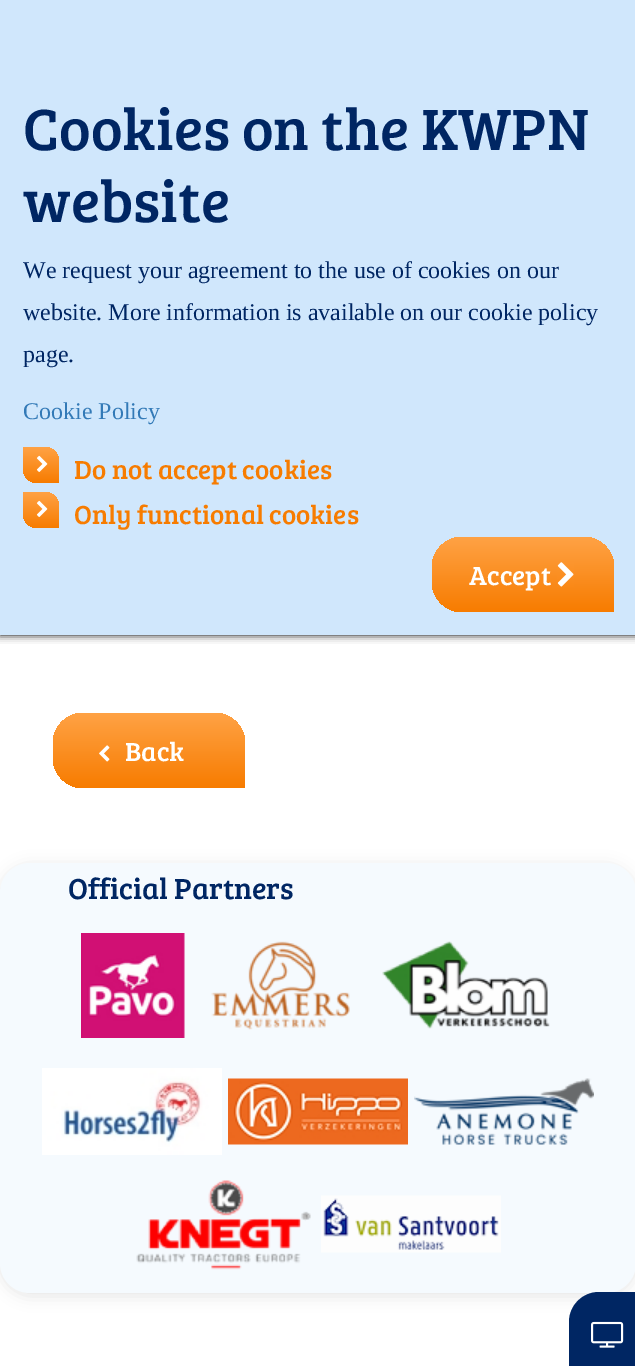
%!PS-Adobe-3.0
%%BoundingBox: 0 0 635 1366
%%LanguageLevel: 3
%%Pages: 1
%%EndComments
%%BeginProlog
/setink { dup -16 bitshift 255 div exch dup -8 bitshift 255 and 255 div exch 255 and 255 div setrgbcolor } def
/usefont { [ exch dup neg 0 0 3 -1 roll 0 0 ] selectfont } def
/setalpha { dup .setfillconstantalpha .setstrokeconstantalpha } def
/rrect { 5 dict begin { /r /h /w /y /x } { exch def } forall
  x r add y moveto x w add y 2 copy h add r arct x w add y h add x 1 index r arct
  x y h add x y r arct x y 2 copy exch w add exch r arct closepath end } def
/softshadow { 12 dict begin { /a /b /q /h /w /y /x } { exch def } forall gsave /was 0 def
  9 -2 -9 { dup b mul 4 div /e exch def 1 sub .425 mul 2.718 exch exp 1 add a .99 .min exch div /now exch def
    1 1 now sub 1 was sub div sub setalpha /was now def
    w h .min e 2 mul add 0 gt { x e sub y e sub w e 2 mul add h e 2 mul add
      q e add b .6 mul add w h .min 2 div e add .min 0 .max rrect fill } if } for grestore end } def
/drawimage { 5 dict begin { /h /w /y /x /name } { exch def } forall
  gsave x y translate w h scale
  w h 8 [w 0 0 h 0 0] name (r) file false 3 colorimage grestore end } def
%%EndProlog
%%BeginSetup
<< /PageSize [635 1366] /PageUsesTransparency true >> setpagedevice
%%EndSetup
%%Page: 1 1
0 .pushpdf14devicefilter
0 1366 translate 1 -1 scale
4 setmiterlimit
16#FFFFFF setink
0 0 635 1366 rectfill
16#000000 setink
0 0 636 635 0 4 1 softshadow
16#D0E7FC setink
0 0 635 635 rectfill
/BreeSerif-Regular 60 usefont
16#002663 setink
23 150 moveto (Cookies on the KWPN) show
23 222 moveto (website) show
/LiberationSerif-Regular 24 usefont
[
    [(We request your agreement to the use of cookies on our) 23 278]
    [(website. More information is available on our cookie policy) 23 320]
    [(page.) 23 362]
] { aload pop moveto show } forall
16#337AB7 setink
23 419 moveto (Cookie Policy) show
gsave 23 447 moveto 44 447 lineto 52.5 447 59 453.5 59 462 curveto 59 483 lineto 38 483 lineto 29.5 483 23 476.5 23 468 curveto closepath clip newpath
<< /ShadingType 2 /ColorSpace /DeviceRGB /Coords [41 447 41 483] /Extend [true true] /Function << /FunctionType 2 /Domain [0 1] /C0 [1 0.635 0.271] /C1 [0.969 0.486 0] /N 1 >> >> shfill grestore
(img1.raw) 36 455 12 17 drawimage
/BreeSerif-Regular 27 usefont
16#F77C00 setink
74 479 moveto (Do not accept cookies) show
gsave 23 492 moveto 44 492 lineto 52.5 492 59 498.5 59 507 curveto 59 528 lineto 38 528 lineto 29.5 528 23 521.5 23 513 curveto closepath clip newpath
<< /ShadingType 2 /ColorSpace /DeviceRGB /Coords [41 492 41 528] /Extend [true true] /Function << /FunctionType 2 /Domain [0 1] /C0 [1 0.635 0.271] /C1 [0.969 0.486 0] /N 1 >> >> shfill grestore
(img1.raw) 36 500 12 17 drawimage
74 524 moveto (Only functional cookies) show
gsave 462 537 moveto 584 537 lineto 600.5 537 614 550.5 614 567 curveto 614 612 lineto 462 612 lineto 445.5 612 432 598.5 432 582 curveto 432 567 lineto 432 550.5 445.5 537 462 537 curveto closepath clip newpath
<< /ShadingType 2 /ColorSpace /DeviceRGB /Coords [523 537 523 612] /Extend [true true] /Function << /FunctionType 2 /Domain [0 1] /C0 [1 0.635 0.271] /C1 [0.969 0.486 0] /N 1 >> >> shfill grestore
16#FFFFFF setink
469 585 moveto (Accept) show
(img2.raw) 557 562 17 25 drawimage
gsave 83 713 moveto 215 713 lineto 231.5 713 245 726.5 245 743 curveto 245 788 lineto 83 788 lineto 66.5 788 53 774.5 53 758 curveto 53 743 lineto 53 726.5 66.5 713 83 713 curveto closepath clip newpath
<< /ShadingType 2 /ColorSpace /DeviceRGB /Coords [149 713 149 788] /Extend [true true] /Function << /FunctionType 2 /Domain [0 1] /C0 [1 0.635 0.271] /C1 [0.969 0.486 0] /N 1 >> >> shfill grestore
(img3.raw) 99 745 11 17 drawimage
125 761 moveto (Back) show
16#000000 setink
0 866 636 430 30 7.5 0.1 softshadow
16#F5FAFE setink
0 863 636 430 30 rrect fill
/BreeSerif-Regular 30 usefont
16#002663 setink
68 899 moveto (Official Partners) show
(img4.raw) 81 933 104 105 drawimage
(img5.raw) 211 941 139 89 drawimage
(img6.raw) 382 941 168 88 drawimage
(img7.raw) 42 1068 180 87 drawimage
(img8.raw) 228 1078 180 67 drawimage
(img9.raw) 414 1078 180 67 drawimage
(img10.raw) 136 1180 175 90 drawimage
(img11.raw) 321 1195 180 58 drawimage
599 1292 moveto 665 1292 lineto 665 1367 lineto 569 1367 lineto 569 1322 lineto 569 1305.5 582.5 1292 599 1292 curveto closepath fill
(img12.raw) 591 1321 33 27 drawimage
.poppdf14devicefilter showpage
%%EOF
